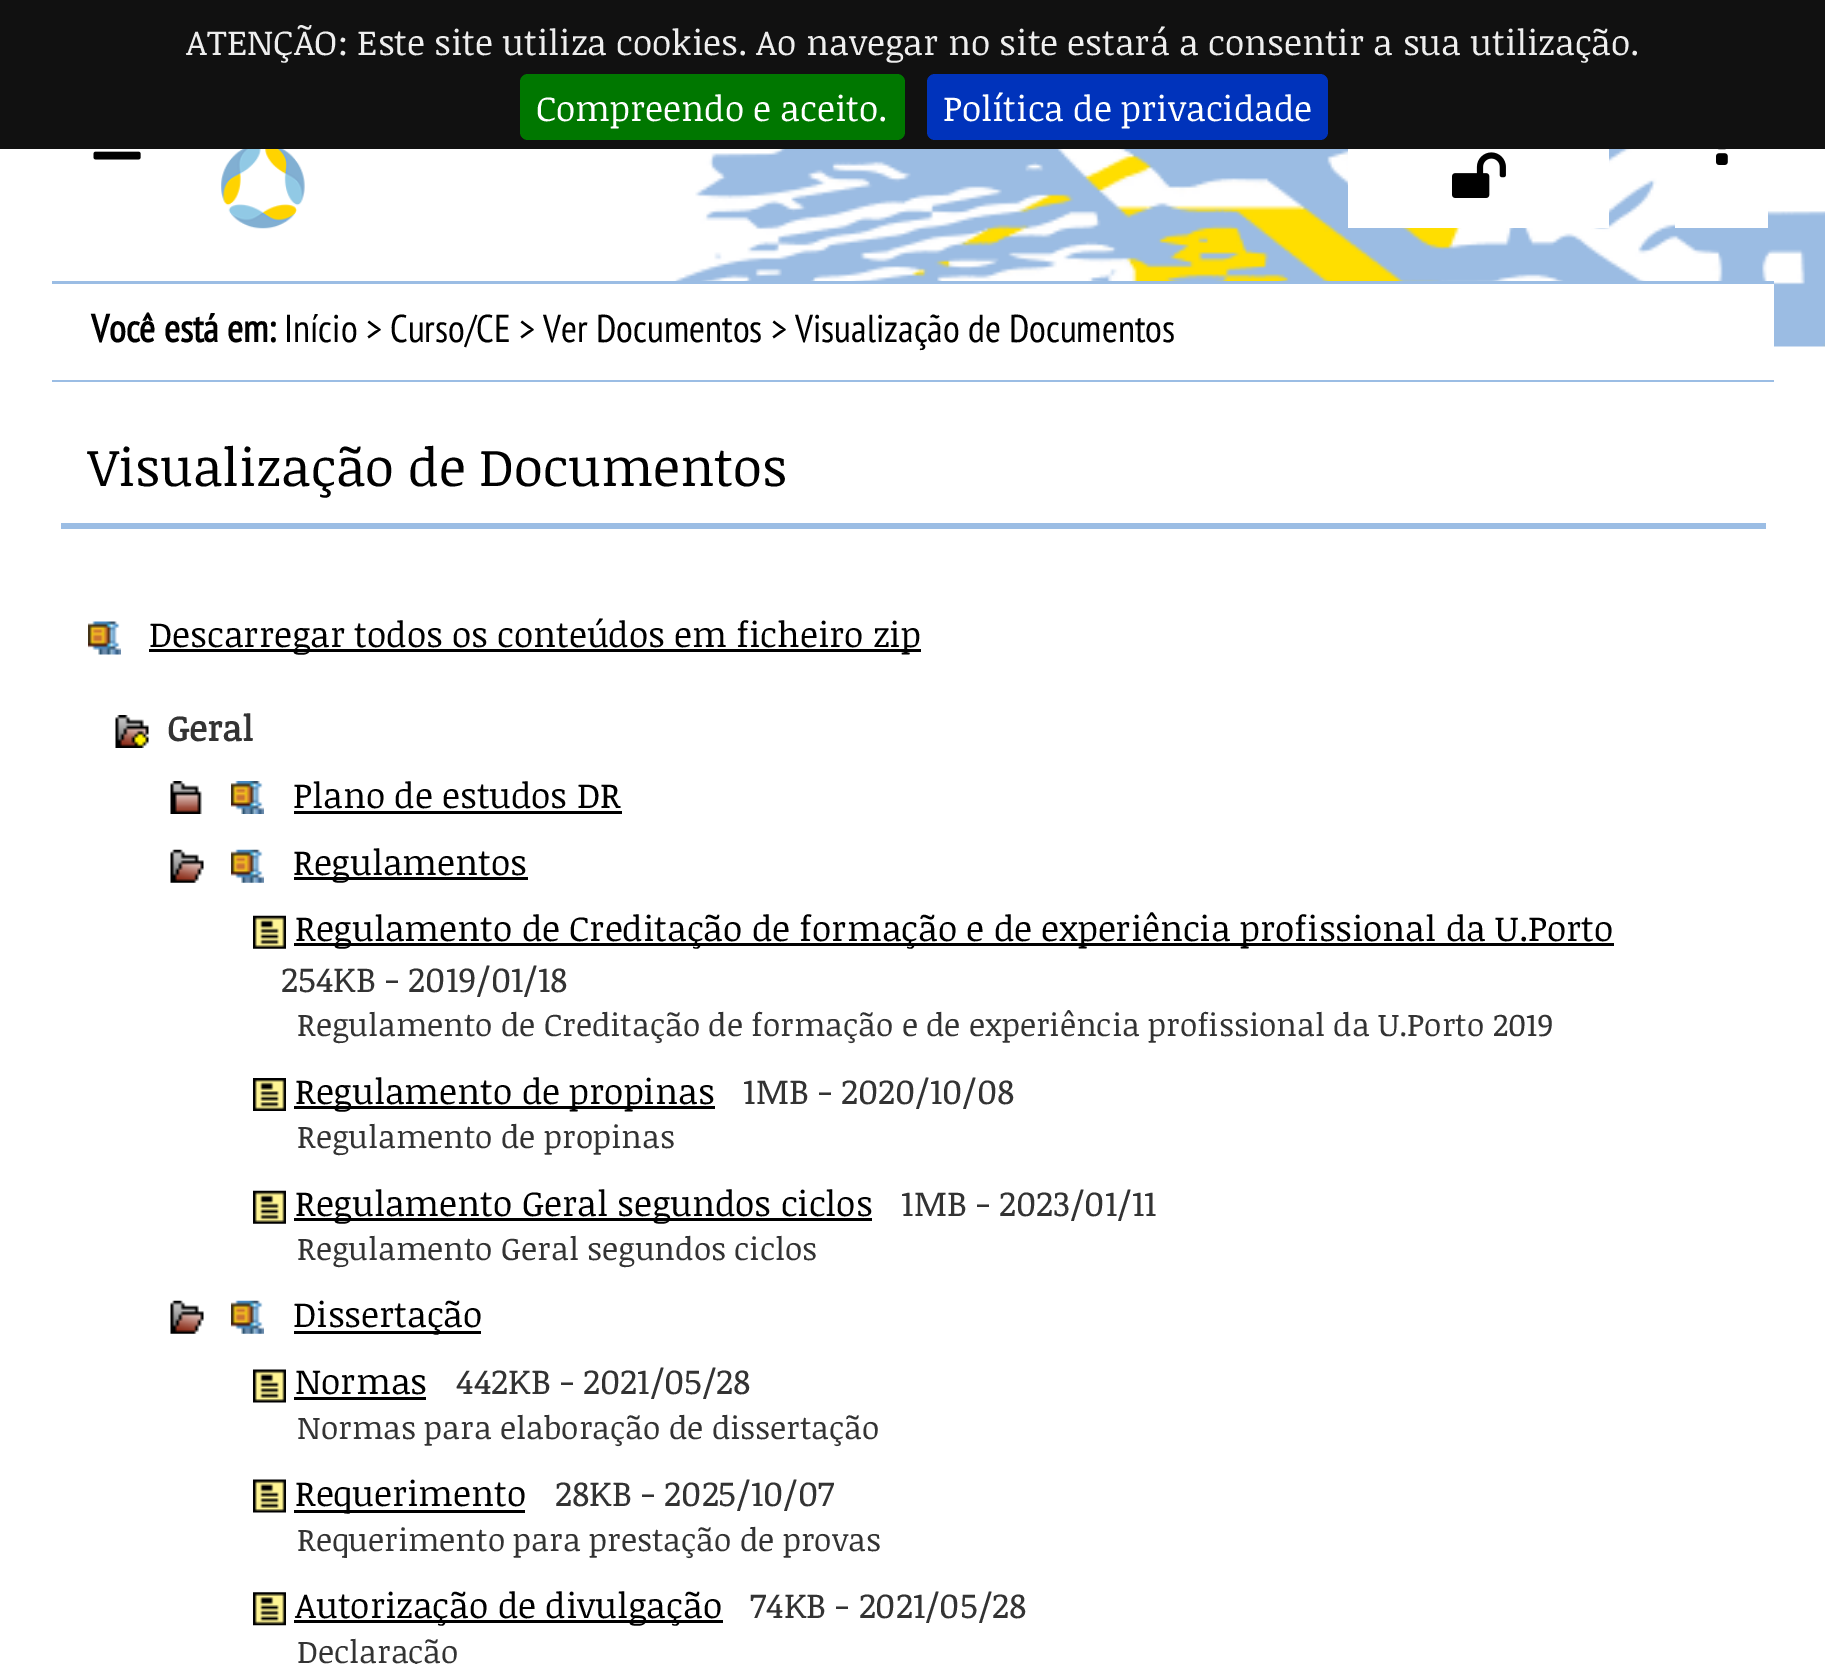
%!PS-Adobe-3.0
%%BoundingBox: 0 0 1825 1664
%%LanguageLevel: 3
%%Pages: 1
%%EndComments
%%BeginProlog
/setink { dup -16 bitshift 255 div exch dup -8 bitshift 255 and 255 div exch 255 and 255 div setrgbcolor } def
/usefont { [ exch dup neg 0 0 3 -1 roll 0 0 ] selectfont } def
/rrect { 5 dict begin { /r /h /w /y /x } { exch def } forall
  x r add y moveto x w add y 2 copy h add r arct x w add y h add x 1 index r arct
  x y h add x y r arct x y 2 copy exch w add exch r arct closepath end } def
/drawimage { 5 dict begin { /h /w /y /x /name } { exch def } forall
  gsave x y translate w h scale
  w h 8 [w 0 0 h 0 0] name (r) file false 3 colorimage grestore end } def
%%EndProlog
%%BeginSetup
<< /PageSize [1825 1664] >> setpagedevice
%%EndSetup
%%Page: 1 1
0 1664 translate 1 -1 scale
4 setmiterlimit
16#FFFFFF setink
0 0 1825 1664 rectfill
(img1.raw) 673 149 1152 198 drawimage
16#111111 setink
0 0 1825 149 rectfill
/NoticiaText-Regular 35.2 usefont
16#EEEEEE setink
186 55 moveto (ATENÇÃO: Este site utiliza cookies. Ao navegar no site estará a consentir a sua utilização.) show
16#007700 setink
520 74 385 66 8 rrect fill
16#FFFFFF setink
536 121 moveto (Compreendo e aceito.) show
16#0033BB setink
927 74 401 66 8 rrect fill
16#FFFFFF setink
943 121 moveto (Política de privacidade) show
(img2.raw) 93 151 48 9 drawimage
(img3.raw) 221 149 84 80 drawimage
1348 149 261 79 rectfill
(img4.raw) 1452 152 54 46 drawimage
1675 149 93 79 rectfill
(img5.raw) 1716 149 12 16 drawimage
[
    [673 284 1101 63 16#FFFFFF]
    [52 281 1722 3 16#9BBDE4]
    [52 380 1722 2 16#9BBDE4]
] { aload pop setink rectfill } forall
/PTSansNarrow-Bold 38.75 usefont
16#000000 setink
91 342 moveto (Você está em:) show
/PTSansNarrow-Regular 38.75 usefont
284 342 moveto (Início > Curso/CE > Ver Documentos > Visualização de Documentos) show
16#9BBDE4 setink
61 523 1705 6 rectfill
/NoticiaText-Regular 52.75 usefont
16#000000 setink
88 486 moveto (Visualização de Documentos) show
(img6.raw) 88 621 33 34 drawimage
149 649 772 3 rectfill
/NoticiaText-Regular 35.2 usefont
149 647 moveto (Descarregar todos os conteúdos em ficheiro zip) show
(img7.raw) 115 715 34 33 drawimage
/NoticiaText-Bold 35.2 usefont
16#333333 setink
167 741 moveto (Geral) show
(img8.raw) 170 781 32 33 drawimage
(img9.raw) 231 781 33 33 drawimage
/NoticiaText-Regular 35.2 usefont
16#000000 setink
293 808 moveto (Plano de estudos DR) show
294 811 328 3 rectfill
(img10.raw) 170 849 34 34 drawimage
(img11.raw) 231 849 33 34 drawimage
294 877 234 3 rectfill
293 875 moveto (Regulamentos) show
(img12.raw) 253 915 33 34 drawimage
294 943 1320 3 rectfill
295 941 moveto (Regulamento de Creditação de formação e de experiência profissional da U.Porto) show
16#333333 setink
281 992 moveto (254KB - 2019/01/18) show
/NoticiaText-Regular 31.7 usefont
297 1036 moveto (Regulamento de Creditação de formação e de experiência profissional da U.Porto 2019) show
(img13.raw) 253 1078 33 33 drawimage
16#000000 setink
294 1106 421 3 rectfill
/NoticiaText-Regular 35.2 usefont
295 1104 moveto (Regulamento de propinas) show
16#333333 setink
743 1104 moveto (1MB - 2020/10/08) show
/NoticiaText-Regular 31.7 usefont
297 1148 moveto (Regulamento de propinas) show
(img12.raw) 253 1190 33 34 drawimage
16#000000 setink
294 1218 578 3 rectfill
/NoticiaText-Regular 35.2 usefont
295 1216 moveto (Regulamento Geral segundos ciclos) show
16#333333 setink
901 1216 moveto (1MB - 2023/01/11) show
/NoticiaText-Regular 31.7 usefont
297 1260 moveto (Regulamento Geral segundos ciclos) show
(img14.raw) 170 1300 34 34 drawimage
(img15.raw) 231 1300 33 34 drawimage
16#000000 setink
294 1331 187 3 rectfill
/NoticiaText-Regular 35.2 usefont
293 1327 moveto (Dissertação) show
(img16.raw) 253 1369 33 34 drawimage
295 1394 moveto (Normas) show
294 1397 132 3 rectfill
16#333333 setink
456 1394 moveto (442KB - 2021/05/28) show
/NoticiaText-Regular 31.7 usefont
297 1439 moveto (Normas para elaboração de dissertação) show
(img16.raw) 253 1479 33 34 drawimage
16#000000 setink
294 1510 231 3 rectfill
/NoticiaText-Regular 35.2 usefont
295 1506 moveto (Requerimento) show
16#333333 setink
555 1506 moveto (28KB - 2025/10/07) show
/NoticiaText-Regular 31.7 usefont
297 1551 moveto (Requerimento para prestação de provas) show
(img17.raw) 253 1592 33 34 drawimage
16#000000 setink
294 1620 429 3 rectfill
/NoticiaText-Regular 35.2 usefont
295 1618 moveto (Autorização de divulgação) show
16#333333 setink
750 1618 moveto (74KB - 2021/05/28) show
/NoticiaText-Regular 31.7 usefont
297 1663 moveto (Declaração) show
showpage
%%EOF
